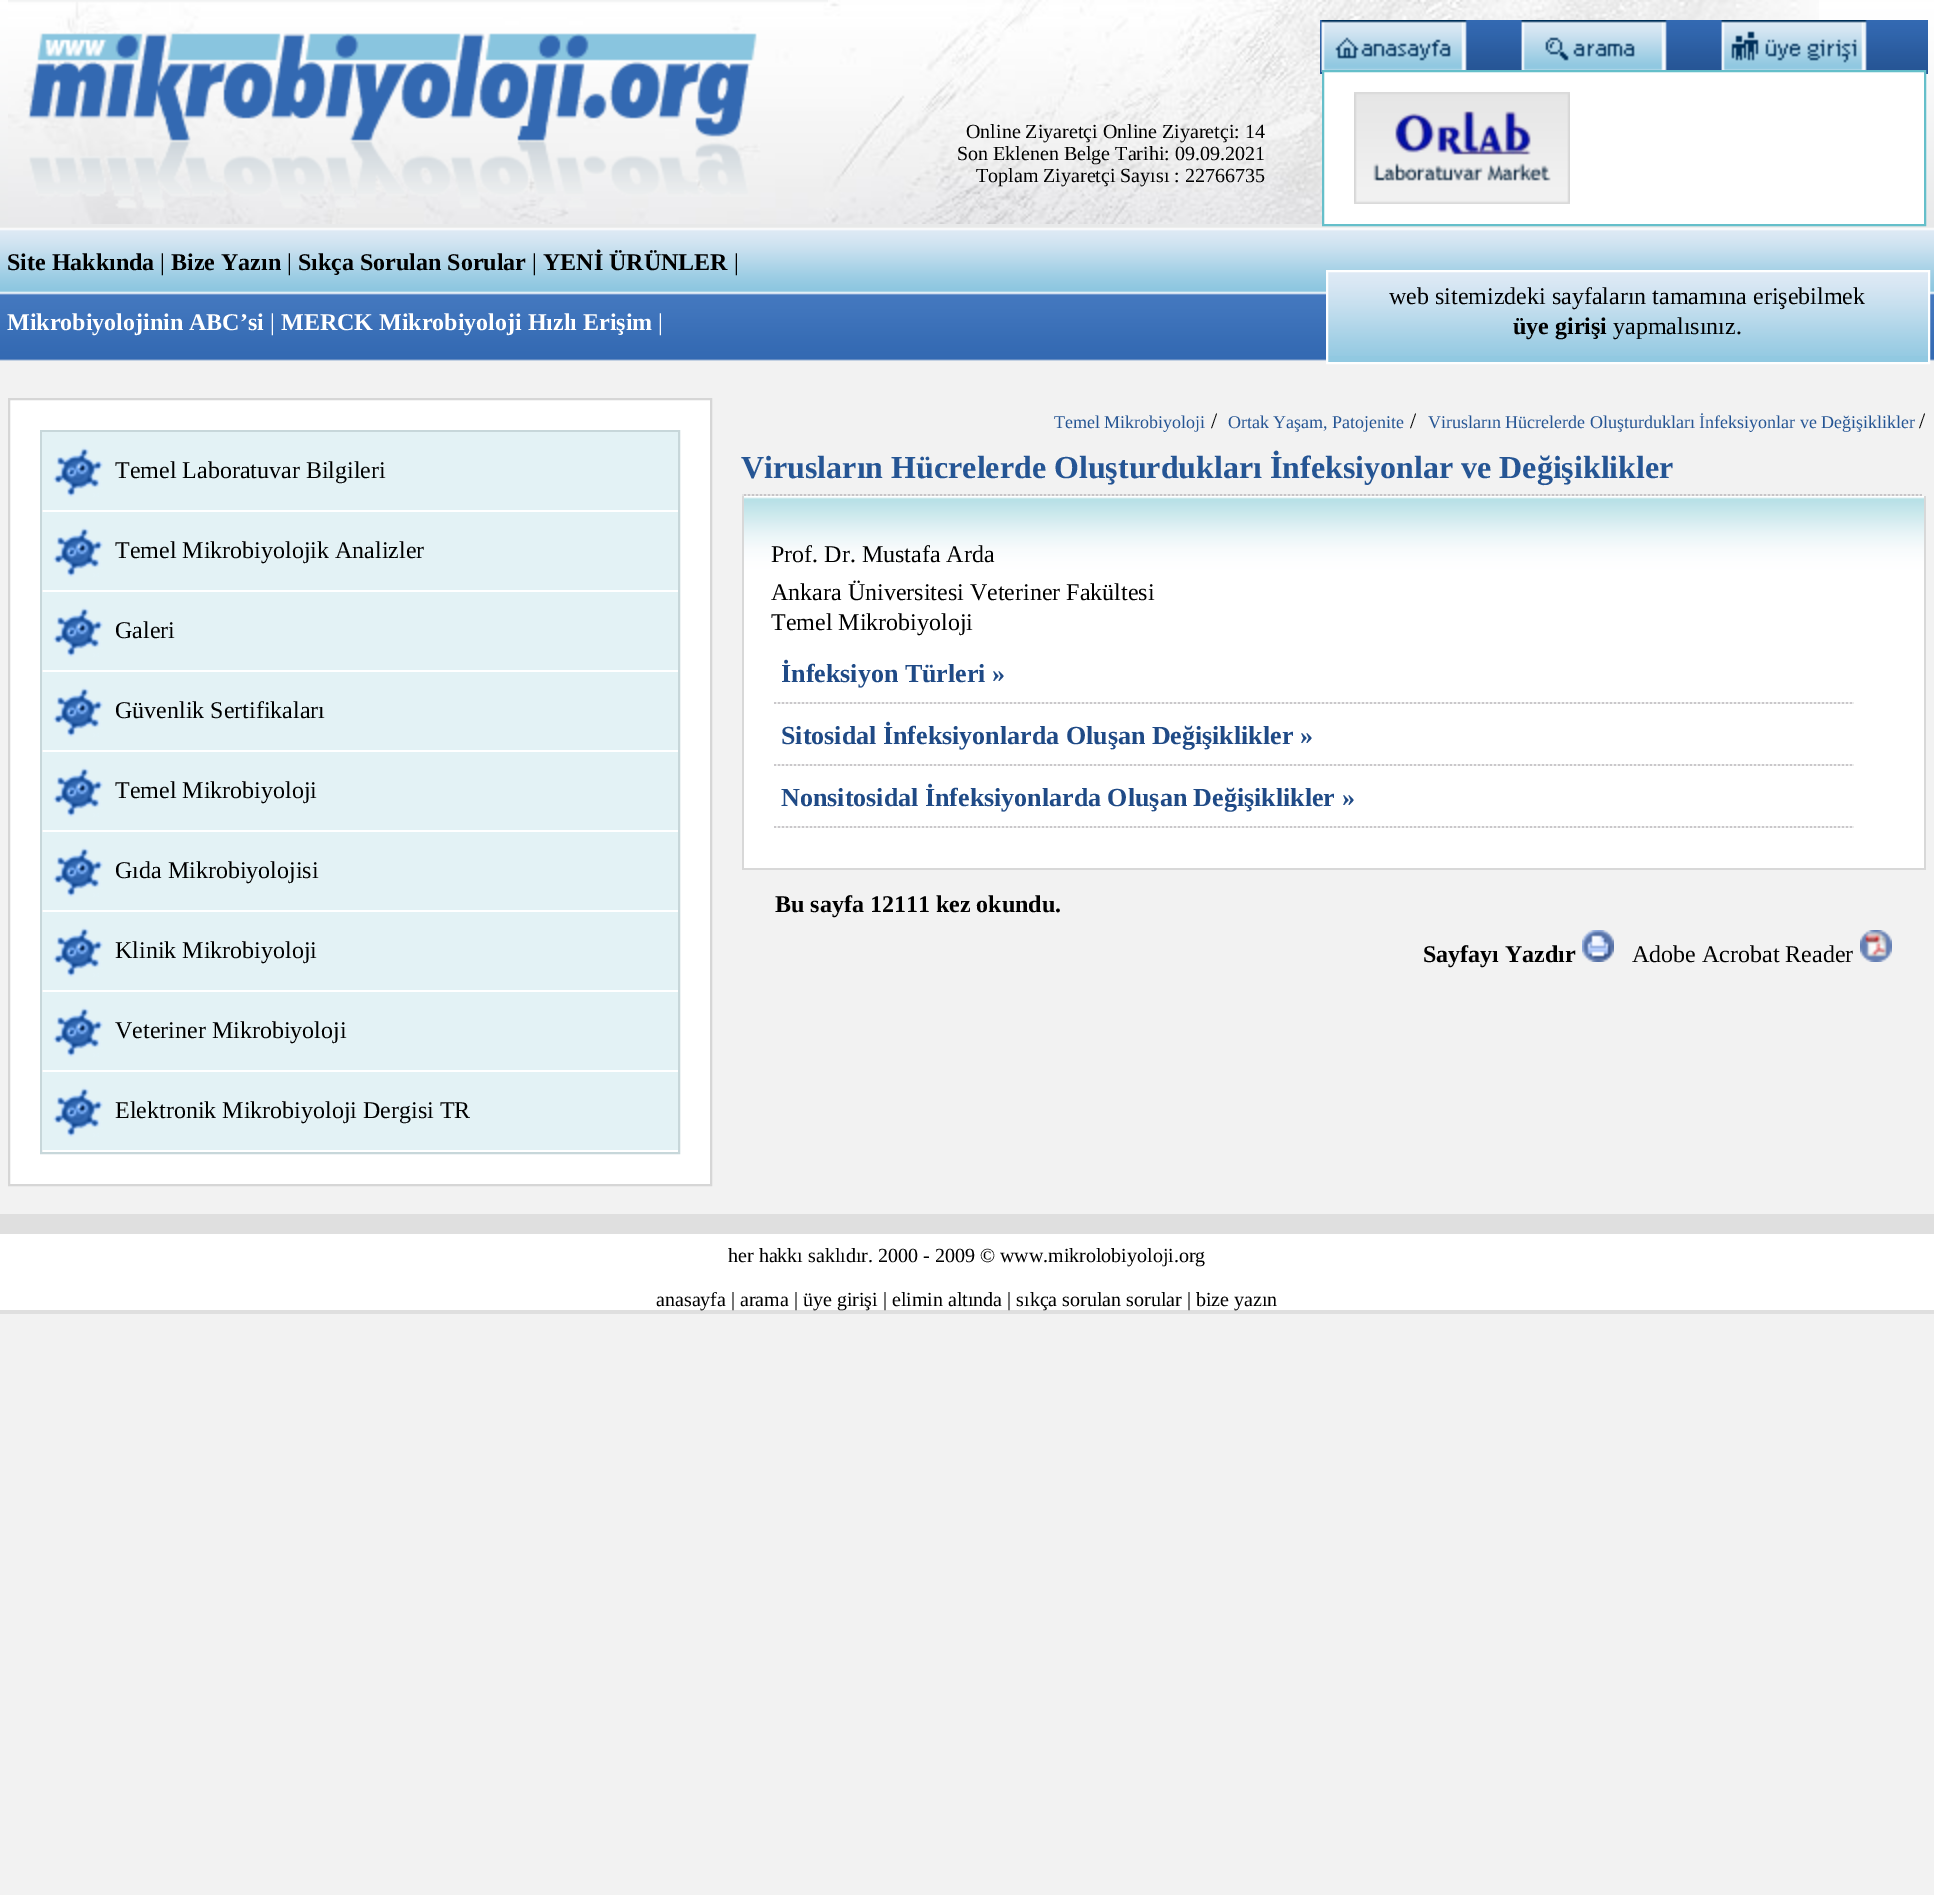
%!PS-Adobe-3.0
%%BoundingBox: 0 0 1934 1895
%%LanguageLevel: 3
%%Pages: 1
%%EndComments
%%BeginProlog
/setink { dup -16 bitshift 255 div exch dup -8 bitshift 255 and 255 div exch 255 and 255 div setrgbcolor } def
/usefont { [ exch dup neg 0 0 3 -1 roll 0 0 ] selectfont } def
/drawimage { 5 dict begin { /h /w /y /x /name } { exch def } forall
  gsave x y translate w h scale
  w h 8 [w 0 0 h 0 0] name (r) file false 3 colorimage grestore end } def
%%EndProlog
%%BeginSetup
<< /PageSize [1934 1895] >> setpagedevice
%%EndSetup
%%Page: 1 1
0 1895 translate 1 -1 scale
4 setmiterlimit
16#F2F2F2 setink
0 0 1934 1895 rectfill
(img1.raw) 0 0 1934 361 drawimage
(img2.raw) 8 0 1811 224 drawimage
(img3.raw) 8 0 820 209 drawimage
(img4.raw) 1320 20 608 54 drawimage
(img5.raw) 1321 20 146 52 drawimage
(img6.raw) 1321 20 144 52 drawimage
(img7.raw) 1521 20 146 50 drawimage
(img8.raw) 1521 20 144 50 drawimage
(img9.raw) 1721 20 146 50 drawimage
(img10.raw) 1721 20 144 50 drawimage
/LiberationSerif-Regular 20 usefont
16#000000 setink
[
    [(Online Ziyaretçi Online Ziyaretçi: 14) 966 138]
    [(Son Eklenen Belge Tarihi: 09.09.2021) 957 160]
    [(Toplam Ziyaretçi Sayısı : 22766735) 976 182]
] { aload pop moveto show } forall
16#FFFFFF setink
1323 71 moveto 1925 71 lineto 1925 225 lineto 1323 225 lineto closepath gsave fill grestore
16#65BFCA setink
2 setlinewidth
stroke
(img11.raw) 1354 92 216 112 drawimage
16#91C9E1 setink
1328 356 600 6 rectfill
(img12.raw) 1328 272 600 84 drawimage
16#FFFFFF setink
1327 271 602 92 rectstroke
/LiberationSerif-Regular 24 usefont
16#000000 setink
1389 304 moveto (web sitemizdeki sayfaların tamamına erişebilmek) show
/LiberationSerif-Bold 24 usefont
1513 334 moveto (üye girişi) show
/LiberationSerif-Regular 24 usefont
1613 334 moveto (yapmalısınız.) show
/LiberationSerif-Bold 24 usefont
7 270 moveto (Site Hakkında) show
/LiberationSerif-Regular 24 usefont
160 270 moveto (|) show
/LiberationSerif-Bold 24 usefont
171 270 moveto (Bize Yazın) show
/LiberationSerif-Regular 24 usefont
287 270 moveto (|) show
/LiberationSerif-Bold 24 usefont
298 270 moveto (Sıkça Sorulan Sorular) show
/LiberationSerif-Regular 24 usefont
532 270 moveto (|) show
/LiberationSerif-Bold 24 usefont
543 270 moveto (YENİ ÜRÜNLER) show
/LiberationSerif-Regular 24 usefont
734 270 moveto (|) show
/LiberationSerif-Bold 24 usefont
16#FFFFFF setink
7 330 moveto (Mikrobiyolojinin ABC’si) show
/LiberationSerif-Regular 24 usefont
270 330 moveto (|) show
/LiberationSerif-Bold 24 usefont
281 330 moveto (MERCK Mikrobiyoloji Hızlı Erişim) show
/LiberationSerif-Regular 24 usefont
658 330 moveto (|) show
9 399 moveto 711 399 lineto 711 1185 lineto 9 1185 lineto closepath gsave fill grestore
16#D6D6D6 setink
stroke
16#C7D7DA setink
41 431 638 722 rectstroke
16#E3F2F5 setink
42 432 636 78 rectfill
(img13.raw) 53 447 50 50 drawimage
16#000000 setink
115 478 moveto (Temel Laboratuvar Bilgileri) show
16#E3F2F5 setink
42 512 636 78 rectfill
(img13.raw) 53 527 50 50 drawimage
16#000000 setink
115 558 moveto (Temel Mikrobiyolojik Analizler) show
16#E3F2F5 setink
42 592 636 78 rectfill
(img13.raw) 53 607 50 50 drawimage
16#000000 setink
115 638 moveto (Galeri) show
16#E3F2F5 setink
42 672 636 78 rectfill
(img13.raw) 53 687 50 50 drawimage
16#000000 setink
115 718 moveto (Güvenlik Sertifikaları) show
16#E3F2F5 setink
42 752 636 78 rectfill
(img13.raw) 53 767 50 50 drawimage
16#000000 setink
115 798 moveto (Temel Mikrobiyoloji) show
16#E3F2F5 setink
42 832 636 78 rectfill
(img13.raw) 53 847 50 50 drawimage
16#000000 setink
115 878 moveto (Gıda Mikrobiyolojisi) show
16#E3F2F5 setink
42 912 636 78 rectfill
(img13.raw) 53 927 50 50 drawimage
16#000000 setink
115 958 moveto (Klinik Mikrobiyoloji) show
16#E3F2F5 setink
42 992 636 78 rectfill
(img13.raw) 53 1007 50 50 drawimage
16#000000 setink
115 1038 moveto (Veteriner Mikrobiyoloji) show
16#E3F2F5 setink
42 1072 636 78 rectfill
(img13.raw) 53 1087 50 50 drawimage
16#000000 setink
115 1118 moveto (Elektronik Mikrobiyoloji Dergisi TR) show
/LiberationSerif-Regular 18 usefont
16#255594 setink
1054 428 moveto (Temel Mikrobiyoloji) show
/LiberationSerif-Regular 22 usefont
16#000000 setink
1211 428 moveto (/) show
/LiberationSerif-Regular 18 usefont
16#255594 setink
1228 428 moveto (Ortak Yaşam, Patojenite) show
/LiberationSerif-Regular 22 usefont
16#000000 setink
1410 428 moveto (/) show
/LiberationSerif-Regular 18 usefont
16#255594 setink
1428 428 moveto (Virusların Hücrelerde Oluşturdukları İnfeksiyonlar ve Değişiklikler) show
/LiberationSerif-Regular 22 usefont
16#000000 setink
1919 428 moveto (/) show
(img14.raw) 742 494 1180 2 drawimage
/LiberationSerif-Bold 32 usefont
16#255594 setink
741 478 moveto (Virusların Hücrelerde Oluşturdukları İnfeksiyonlar ve Değişiklikler) show
16#FFFFFF setink
744 496 1180 372 rectfill
(img15.raw) 744 497 1180 73 drawimage
[
    [1924 496 2 374 16#D8D8D8]
    [742 868 1184 2 16#D8D8D8]
    [742 496 2 374 16#D8D8D8]
] { aload pop setink rectfill } forall
/LiberationSerif-Regular 24 usefont
16#000000 setink
[
    [(Prof. Dr. Mustafa Arda) 771 562]
    [(Ankara Üniversitesi Veteriner Fakültesi) 771 600]
    [(Temel Mikrobiyoloji) 771 630]
] { aload pop moveto show } forall
(img16.raw) 774 702 1080 2 drawimage
/LiberationSerif-Bold 26 usefont
16#1F4A86 setink
781 682 moveto (İnfeksiyon Türleri ») show
(img16.raw) 774 764 1080 2 drawimage
781 744 moveto (Sitosidal İnfeksiyonlarda Oluşan Değişiklikler ») show
(img16.raw) 774 826 1080 2 drawimage
781 806 moveto (Nonsitosidal İnfeksiyonlarda Oluşan Değişiklikler ») show
/LiberationSerif-Bold 24 usefont
16#000000 setink
775 912 moveto (Bu sayfa 12111 kez okundu.) show
1423 962 moveto (Sayfayı Yazdır) show
(img17.raw) 1582 930 32 32 drawimage
/LiberationSerif-Regular 24 usefont
1632 962 moveto (Adobe Acrobat Reader) show
(img18.raw) 1860 930 32 32 drawimage
[
    [0 1234 1934 76 16#FFFFFF]
    [0 1214 1934 20 16#DFDFDF]
    [0 1310 1934 4 16#DFDFDF]
] { aload pop setink rectfill } forall
/LiberationSerif-Regular 20 usefont
16#000000 setink
728 1262 moveto (her hakkı saklıdır. 2000 - 2009 © www.mikrolobiyoloji.org) show
656 1306 moveto (anasayfa | arama | üye girişi | elimin altında | sıkça sorulan sorular | bize yazın) show
showpage
%%EOF
